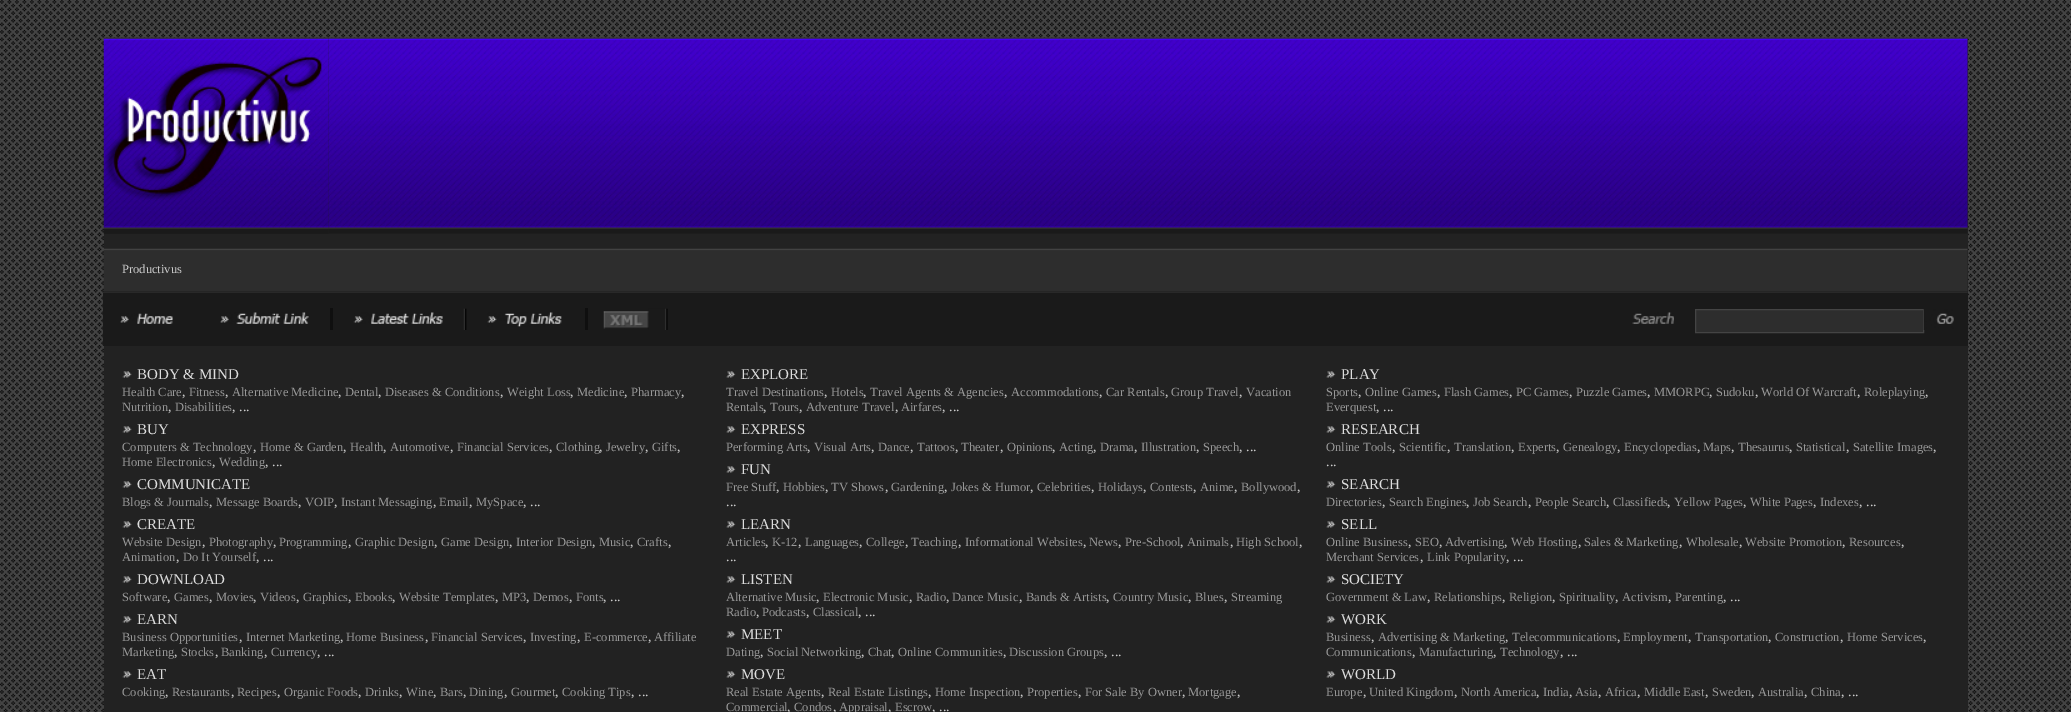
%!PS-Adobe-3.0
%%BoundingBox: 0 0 2071 712
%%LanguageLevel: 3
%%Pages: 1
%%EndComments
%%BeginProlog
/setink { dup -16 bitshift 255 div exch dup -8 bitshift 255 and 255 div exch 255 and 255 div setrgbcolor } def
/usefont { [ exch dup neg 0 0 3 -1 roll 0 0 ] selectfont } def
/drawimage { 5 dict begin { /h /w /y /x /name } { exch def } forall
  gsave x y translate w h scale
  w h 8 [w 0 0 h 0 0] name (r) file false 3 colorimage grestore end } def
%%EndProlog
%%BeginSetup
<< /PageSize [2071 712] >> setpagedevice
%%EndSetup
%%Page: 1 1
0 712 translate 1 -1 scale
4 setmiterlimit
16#FFFFFF setink
0 0 2071 712 rectfill
(img1.raw) 0 0 2071 712 drawimage
16#222222 setink
104 38 1864 674 rectfill
(img3.raw) 328 37 1640 197 drawimage
(img2.raw) 103 37 226 197 drawimage
(img4.raw) 103 248 1865 45 drawimage
/LiberationSerif-Regular 12.5 usefont
16#CBCBCB setink
122 273 moveto (Productivus) show
16#1A1A1A setink
103 293 1865 53 rectfill
(img5.raw) 120 313 53 11 drawimage
(img6.raw) 220 312 89 12 drawimage
16#0F0F0F setink
330 308 3 22 rectfill
(img7.raw) 353 312 90 12 drawimage
(img8.raw) 463 308 4 22 drawimage
(img9.raw) 487 312 75 15 drawimage
585 308 3 22 rectfill
(img10.raw) 603 311 46 18 drawimage
(img11.raw) 648 308 20 22 drawimage
(img12.raw) 1632 312 42 12 drawimage
16#2D2D2D setink
1695.5 309.5 moveto 1923.5 309.5 lineto 1923.5 332.5 lineto 1695.5 332.5 lineto closepath gsave fill grestore
16#444444 setink
stroke
(img13.raw) 1923 309 31 21 drawimage
(img14.raw) 122 371 10 7 drawimage
/LiberationSerif-Regular 15 usefont
16#DDDDDD setink
137 379 moveto (BODY & MIND) show
/LiberationSerif-Regular 12.5 usefont
16#999999 setink
122 396 moveto (Health Care) show
/LiberationSerif-Regular 14 usefont
16#CBCBCB setink
182 396 moveto (,) show
/LiberationSerif-Regular 12.5 usefont
16#999999 setink
189 396 moveto (Fitness) show
/LiberationSerif-Regular 14 usefont
16#CBCBCB setink
225 396 moveto (,) show
/LiberationSerif-Regular 12.5 usefont
16#999999 setink
232 396 moveto (Alternative Medicine) show
/LiberationSerif-Regular 14 usefont
16#CBCBCB setink
338 396 moveto (,) show
/LiberationSerif-Regular 12.5 usefont
16#999999 setink
345 396 moveto (Dental) show
/LiberationSerif-Regular 14 usefont
16#CBCBCB setink
378 396 moveto (,) show
/LiberationSerif-Regular 12.5 usefont
16#999999 setink
385 396 moveto (Diseases & Conditions) show
/LiberationSerif-Regular 14 usefont
16#CBCBCB setink
500 396 moveto (,) show
/LiberationSerif-Regular 12.5 usefont
16#999999 setink
507 396 moveto (Weight Loss) show
/LiberationSerif-Regular 14 usefont
16#CBCBCB setink
570 396 moveto (,) show
/LiberationSerif-Regular 12.5 usefont
16#999999 setink
577 396 moveto (Medicine) show
/LiberationSerif-Regular 14 usefont
16#CBCBCB setink
624 396 moveto (,) show
/LiberationSerif-Regular 12.5 usefont
16#999999 setink
631 396 moveto (Pharmacy) show
/LiberationSerif-Regular 14 usefont
16#CBCBCB setink
681 396 moveto (,) show
/LiberationSerif-Regular 12.5 usefont
16#999999 setink
122 411 moveto (Nutrition) show
/LiberationSerif-Regular 14 usefont
16#CBCBCB setink
168 411 moveto (,) show
/LiberationSerif-Regular 12.5 usefont
16#999999 setink
175 411 moveto (Disabilities) show
/LiberationSerif-Regular 14 usefont
16#CBCBCB setink
232 411 moveto (, ...) show
(img14.raw) 122 426 10 7 drawimage
/LiberationSerif-Regular 15 usefont
16#DDDDDD setink
137 434 moveto (BUY) show
/LiberationSerif-Regular 12.5 usefont
16#999999 setink
122 451 moveto (Computers & Technology) show
/LiberationSerif-Regular 14 usefont
16#CBCBCB setink
253 451 moveto (,) show
/LiberationSerif-Regular 12.5 usefont
16#999999 setink
260 451 moveto (Home & Garden) show
/LiberationSerif-Regular 14 usefont
16#CBCBCB setink
343 451 moveto (,) show
/LiberationSerif-Regular 12.5 usefont
16#999999 setink
350 451 moveto (Health) show
/LiberationSerif-Regular 14 usefont
16#CBCBCB setink
383 451 moveto (,) show
/LiberationSerif-Regular 12.5 usefont
16#999999 setink
390 451 moveto (Automotive) show
/LiberationSerif-Regular 14 usefont
16#CBCBCB setink
450 451 moveto (,) show
/LiberationSerif-Regular 12.5 usefont
16#999999 setink
457 451 moveto (Financial Services) show
/LiberationSerif-Regular 14 usefont
16#CBCBCB setink
549 451 moveto (,) show
/LiberationSerif-Regular 12.5 usefont
16#999999 setink
556 451 moveto (Clothing) show
/LiberationSerif-Regular 14 usefont
16#CBCBCB setink
599 451 moveto (,) show
/LiberationSerif-Regular 12.5 usefont
16#999999 setink
606 451 moveto (Jewelry) show
/LiberationSerif-Regular 14 usefont
16#CBCBCB setink
645 451 moveto (,) show
/LiberationSerif-Regular 12.5 usefont
16#999999 setink
652 451 moveto (Gifts) show
/LiberationSerif-Regular 14 usefont
16#CBCBCB setink
677 451 moveto (,) show
/LiberationSerif-Regular 12.5 usefont
16#999999 setink
122 466 moveto (Home Electronics) show
/LiberationSerif-Regular 14 usefont
16#CBCBCB setink
212 466 moveto (,) show
/LiberationSerif-Regular 12.5 usefont
16#999999 setink
219 466 moveto (Wedding) show
/LiberationSerif-Regular 14 usefont
16#CBCBCB setink
265 466 moveto (, ...) show
(img14.raw) 122 481 10 7 drawimage
/LiberationSerif-Regular 15 usefont
16#DDDDDD setink
137 489 moveto (COMMUNICATE) show
/LiberationSerif-Regular 12.5 usefont
16#999999 setink
122 506 moveto (Blogs & Journals) show
/LiberationSerif-Regular 14 usefont
16#CBCBCB setink
209 506 moveto (,) show
/LiberationSerif-Regular 12.5 usefont
16#999999 setink
216 506 moveto (Message Boards) show
/LiberationSerif-Regular 14 usefont
16#CBCBCB setink
298 506 moveto (,) show
/LiberationSerif-Regular 12.5 usefont
16#999999 setink
305 506 moveto (VOIP) show
/LiberationSerif-Regular 14 usefont
16#CBCBCB setink
334 506 moveto (,) show
/LiberationSerif-Regular 12.5 usefont
16#999999 setink
341 506 moveto (Instant Messaging) show
/LiberationSerif-Regular 14 usefont
16#CBCBCB setink
433 506 moveto (,) show
/LiberationSerif-Regular 12.5 usefont
16#999999 setink
439 506 moveto (Email) show
/LiberationSerif-Regular 14 usefont
16#CBCBCB setink
469 506 moveto (,) show
/LiberationSerif-Regular 12.5 usefont
16#999999 setink
476 506 moveto (MySpace) show
/LiberationSerif-Regular 14 usefont
16#CBCBCB setink
523 506 moveto (, ...) show
(img14.raw) 122 521 10 7 drawimage
/LiberationSerif-Regular 15 usefont
16#DDDDDD setink
137 529 moveto (CREATE) show
/LiberationSerif-Regular 12.5 usefont
16#999999 setink
122 546 moveto (Website Design) show
/LiberationSerif-Regular 14 usefont
16#CBCBCB setink
202 546 moveto (,) show
/LiberationSerif-Regular 12.5 usefont
16#999999 setink
209 546 moveto (Photography) show
/LiberationSerif-Regular 14 usefont
16#CBCBCB setink
273 546 moveto (,) show
/LiberationSerif-Regular 12.5 usefont
16#999999 setink
279 546 moveto (Programming) show
/LiberationSerif-Regular 14 usefont
16#CBCBCB setink
348 546 moveto (,) show
/LiberationSerif-Regular 12.5 usefont
16#999999 setink
355 546 moveto (Graphic Design) show
/LiberationSerif-Regular 14 usefont
16#CBCBCB setink
434 546 moveto (,) show
/LiberationSerif-Regular 12.5 usefont
16#999999 setink
441 546 moveto (Game Design) show
/LiberationSerif-Regular 14 usefont
16#CBCBCB setink
509 546 moveto (,) show
/LiberationSerif-Regular 12.5 usefont
16#999999 setink
516 546 moveto (Interior Design) show
/LiberationSerif-Regular 14 usefont
16#CBCBCB setink
592 546 moveto (,) show
/LiberationSerif-Regular 12.5 usefont
16#999999 setink
599 546 moveto (Music) show
/LiberationSerif-Regular 14 usefont
16#CBCBCB setink
630 546 moveto (,) show
/LiberationSerif-Regular 12.5 usefont
16#999999 setink
637 546 moveto (Crafts) show
/LiberationSerif-Regular 14 usefont
16#CBCBCB setink
668 546 moveto (,) show
/LiberationSerif-Regular 12.5 usefont
16#999999 setink
122 561 moveto (Animation) show
/LiberationSerif-Regular 14 usefont
16#CBCBCB setink
176 561 moveto (,) show
/LiberationSerif-Regular 12.5 usefont
16#999999 setink
183 561 moveto (Do It Yourself) show
/LiberationSerif-Regular 14 usefont
16#CBCBCB setink
256 561 moveto (, ...) show
(img14.raw) 122 576 10 7 drawimage
/LiberationSerif-Regular 15 usefont
16#DDDDDD setink
137 584 moveto (DOWNLOAD) show
/LiberationSerif-Regular 12.5 usefont
16#999999 setink
122 601 moveto (Software) show
/LiberationSerif-Regular 14 usefont
16#CBCBCB setink
167 601 moveto (,) show
/LiberationSerif-Regular 12.5 usefont
16#999999 setink
174 601 moveto (Games) show
/LiberationSerif-Regular 14 usefont
16#CBCBCB setink
209 601 moveto (,) show
/LiberationSerif-Regular 12.5 usefont
16#999999 setink
216 601 moveto (Movies) show
/LiberationSerif-Regular 14 usefont
16#CBCBCB setink
253 601 moveto (,) show
/LiberationSerif-Regular 12.5 usefont
16#999999 setink
260 601 moveto (Videos) show
/LiberationSerif-Regular 14 usefont
16#CBCBCB setink
296 601 moveto (,) show
/LiberationSerif-Regular 12.5 usefont
16#999999 setink
303 601 moveto (Graphics) show
/LiberationSerif-Regular 14 usefont
16#CBCBCB setink
348 601 moveto (,) show
/LiberationSerif-Regular 12.5 usefont
16#999999 setink
355 601 moveto (Ebooks) show
/LiberationSerif-Regular 14 usefont
16#CBCBCB setink
392 601 moveto (,) show
/LiberationSerif-Regular 12.5 usefont
16#999999 setink
399 601 moveto (Website Templates) show
/LiberationSerif-Regular 14 usefont
16#CBCBCB setink
495 601 moveto (,) show
/LiberationSerif-Regular 12.5 usefont
16#999999 setink
502 601 moveto (MP3) show
/LiberationSerif-Regular 14 usefont
16#CBCBCB setink
526 601 moveto (,) show
/LiberationSerif-Regular 12.5 usefont
16#999999 setink
533 601 moveto (Demos) show
/LiberationSerif-Regular 14 usefont
16#CBCBCB setink
569 601 moveto (,) show
/LiberationSerif-Regular 12.5 usefont
16#999999 setink
576 601 moveto (Fonts) show
/LiberationSerif-Regular 14 usefont
16#CBCBCB setink
603 601 moveto (, ...) show
(img14.raw) 122 616 10 7 drawimage
/LiberationSerif-Regular 15 usefont
16#DDDDDD setink
137 624 moveto (EARN) show
/LiberationSerif-Regular 12.5 usefont
16#999999 setink
122 641 moveto (Business Opportunities) show
/LiberationSerif-Regular 14 usefont
16#CBCBCB setink
239 641 moveto (,) show
/LiberationSerif-Regular 12.5 usefont
16#999999 setink
246 641 moveto (Internet Marketing) show
/LiberationSerif-Regular 14 usefont
16#CBCBCB setink
340 641 moveto (,) show
/LiberationSerif-Regular 12.5 usefont
16#999999 setink
346 641 moveto (Home Business) show
/LiberationSerif-Regular 14 usefont
16#CBCBCB setink
425 641 moveto (,) show
/LiberationSerif-Regular 12.5 usefont
16#999999 setink
431 641 moveto (Financial Services) show
/LiberationSerif-Regular 14 usefont
16#CBCBCB setink
523 641 moveto (,) show
/LiberationSerif-Regular 12.5 usefont
16#999999 setink
530 641 moveto (Investing) show
/LiberationSerif-Regular 14 usefont
16#CBCBCB setink
577 641 moveto (,) show
/LiberationSerif-Regular 12.5 usefont
16#999999 setink
584 641 moveto (E-commerce) show
/LiberationSerif-Regular 14 usefont
16#CBCBCB setink
648 641 moveto (,) show
/LiberationSerif-Regular 12.5 usefont
16#999999 setink
654 641 moveto (Affiliate) show
122 656 moveto (Marketing) show
/LiberationSerif-Regular 14 usefont
16#CBCBCB setink
174 656 moveto (,) show
/LiberationSerif-Regular 12.5 usefont
16#999999 setink
181 656 moveto (Stocks) show
/LiberationSerif-Regular 14 usefont
16#CBCBCB setink
215 656 moveto (,) show
/LiberationSerif-Regular 12.5 usefont
16#999999 setink
221 656 moveto (Banking) show
/LiberationSerif-Regular 14 usefont
16#CBCBCB setink
264 656 moveto (,) show
/LiberationSerif-Regular 12.5 usefont
16#999999 setink
271 656 moveto (Currency) show
/LiberationSerif-Regular 14 usefont
16#CBCBCB setink
317 656 moveto (, ...) show
(img14.raw) 122 671 10 7 drawimage
/LiberationSerif-Regular 15 usefont
16#DDDDDD setink
137 679 moveto (EAT) show
/LiberationSerif-Regular 12.5 usefont
16#999999 setink
122 696 moveto (Cooking) show
/LiberationSerif-Regular 14 usefont
16#CBCBCB setink
165 696 moveto (,) show
/LiberationSerif-Regular 12.5 usefont
16#999999 setink
172 696 moveto (Restaurants) show
/LiberationSerif-Regular 14 usefont
16#CBCBCB setink
231 696 moveto (,) show
/LiberationSerif-Regular 12.5 usefont
16#999999 setink
237 696 moveto (Recipes) show
/LiberationSerif-Regular 14 usefont
16#CBCBCB setink
277 696 moveto (,) show
/LiberationSerif-Regular 12.5 usefont
16#999999 setink
284 696 moveto (Organic Foods) show
/LiberationSerif-Regular 14 usefont
16#CBCBCB setink
358 696 moveto (,) show
/LiberationSerif-Regular 12.5 usefont
16#999999 setink
365 696 moveto (Drinks) show
/LiberationSerif-Regular 14 usefont
16#CBCBCB setink
399 696 moveto (,) show
/LiberationSerif-Regular 12.5 usefont
16#999999 setink
406 696 moveto (Wine) show
/LiberationSerif-Regular 14 usefont
16#CBCBCB setink
433 696 moveto (,) show
/LiberationSerif-Regular 12.5 usefont
16#999999 setink
440 696 moveto (Bars) show
/LiberationSerif-Regular 14 usefont
16#CBCBCB setink
463 696 moveto (,) show
/LiberationSerif-Regular 12.5 usefont
16#999999 setink
469 696 moveto (Dining) show
/LiberationSerif-Regular 14 usefont
16#CBCBCB setink
504 696 moveto (,) show
/LiberationSerif-Regular 12.5 usefont
16#999999 setink
511 696 moveto (Gourmet) show
/LiberationSerif-Regular 14 usefont
16#CBCBCB setink
555 696 moveto (,) show
/LiberationSerif-Regular 12.5 usefont
16#999999 setink
562 696 moveto (Cooking Tips) show
/LiberationSerif-Regular 14 usefont
16#CBCBCB setink
631 696 moveto (, ...) show
(img15.raw) 726 371 10 7 drawimage
/LiberationSerif-Regular 15 usefont
16#DDDDDD setink
741 379 moveto (EXPLORE) show
/LiberationSerif-Regular 12.5 usefont
16#999999 setink
726 396 moveto (Travel Destinations) show
/LiberationSerif-Regular 14 usefont
16#CBCBCB setink
824 396 moveto (,) show
/LiberationSerif-Regular 12.5 usefont
16#999999 setink
831 396 moveto (Hotels) show
/LiberationSerif-Regular 14 usefont
16#CBCBCB setink
863 396 moveto (,) show
/LiberationSerif-Regular 12.5 usefont
16#999999 setink
870 396 moveto (Travel Agents & Agencies) show
/LiberationSerif-Regular 14 usefont
16#CBCBCB setink
1004 396 moveto (,) show
/LiberationSerif-Regular 12.5 usefont
16#999999 setink
1011 396 moveto (Accommodations) show
/LiberationSerif-Regular 14 usefont
16#CBCBCB setink
1099 396 moveto (,) show
/LiberationSerif-Regular 12.5 usefont
16#999999 setink
1106 396 moveto (Car Rentals) show
/LiberationSerif-Regular 14 usefont
16#CBCBCB setink
1165 396 moveto (,) show
/LiberationSerif-Regular 12.5 usefont
16#999999 setink
1171 396 moveto (Group Travel) show
/LiberationSerif-Regular 14 usefont
16#CBCBCB setink
1239 396 moveto (,) show
/LiberationSerif-Regular 12.5 usefont
16#999999 setink
1246 396 moveto (Vacation) show
726 411 moveto (Rentals) show
/LiberationSerif-Regular 14 usefont
16#CBCBCB setink
763 411 moveto (,) show
/LiberationSerif-Regular 12.5 usefont
16#999999 setink
770 411 moveto (Tours) show
/LiberationSerif-Regular 14 usefont
16#CBCBCB setink
799 411 moveto (,) show
/LiberationSerif-Regular 12.5 usefont
16#999999 setink
806 411 moveto (Adventure Travel) show
/LiberationSerif-Regular 14 usefont
16#CBCBCB setink
895 411 moveto (,) show
/LiberationSerif-Regular 12.5 usefont
16#999999 setink
901 411 moveto (Airfares) show
/LiberationSerif-Regular 14 usefont
16#CBCBCB setink
942 411 moveto (, ...) show
(img15.raw) 726 426 10 7 drawimage
/LiberationSerif-Regular 15 usefont
16#DDDDDD setink
741 434 moveto (EXPRESS) show
/LiberationSerif-Regular 12.5 usefont
16#999999 setink
726 451 moveto (Performing Arts) show
/LiberationSerif-Regular 14 usefont
16#CBCBCB setink
807 451 moveto (,) show
/LiberationSerif-Regular 12.5 usefont
16#999999 setink
814 451 moveto (Visual Arts) show
/LiberationSerif-Regular 14 usefont
16#CBCBCB setink
871 451 moveto (,) show
/LiberationSerif-Regular 12.5 usefont
16#999999 setink
878 451 moveto (Dance) show
/LiberationSerif-Regular 14 usefont
16#CBCBCB setink
910 451 moveto (,) show
/LiberationSerif-Regular 12.5 usefont
16#999999 setink
917 451 moveto (Tattoos) show
/LiberationSerif-Regular 14 usefont
16#CBCBCB setink
955 451 moveto (,) show
/LiberationSerif-Regular 12.5 usefont
16#999999 setink
961 451 moveto (Theater) show
/LiberationSerif-Regular 14 usefont
16#CBCBCB setink
1000 451 moveto (,) show
/LiberationSerif-Regular 12.5 usefont
16#999999 setink
1007 451 moveto (Opinions) show
/LiberationSerif-Regular 14 usefont
16#CBCBCB setink
1052 451 moveto (,) show
/LiberationSerif-Regular 12.5 usefont
16#999999 setink
1059 451 moveto (Acting) show
/LiberationSerif-Regular 14 usefont
16#CBCBCB setink
1093 451 moveto (,) show
/LiberationSerif-Regular 12.5 usefont
16#999999 setink
1100 451 moveto (Drama) show
/LiberationSerif-Regular 14 usefont
16#CBCBCB setink
1134 451 moveto (,) show
/LiberationSerif-Regular 12.5 usefont
16#999999 setink
1141 451 moveto (Illustration) show
/LiberationSerif-Regular 14 usefont
16#CBCBCB setink
1196 451 moveto (,) show
/LiberationSerif-Regular 12.5 usefont
16#999999 setink
1203 451 moveto (Speech) show
/LiberationSerif-Regular 14 usefont
16#CBCBCB setink
1239 451 moveto (, ...) show
(img15.raw) 726 466 10 7 drawimage
/LiberationSerif-Regular 15 usefont
16#DDDDDD setink
741 474 moveto (FUN) show
/LiberationSerif-Regular 12.5 usefont
16#999999 setink
726 491 moveto (Free Stuff) show
/LiberationSerif-Regular 14 usefont
16#CBCBCB setink
776 491 moveto (,) show
/LiberationSerif-Regular 12.5 usefont
16#999999 setink
783 491 moveto (Hobbies) show
/LiberationSerif-Regular 14 usefont
16#CBCBCB setink
825 491 moveto (,) show
/LiberationSerif-Regular 12.5 usefont
16#999999 setink
831 491 moveto (TV Shows) show
/LiberationSerif-Regular 14 usefont
16#CBCBCB setink
885 491 moveto (,) show
/LiberationSerif-Regular 12.5 usefont
16#999999 setink
891 491 moveto (Gardening) show
/LiberationSerif-Regular 14 usefont
16#CBCBCB setink
944 491 moveto (,) show
/LiberationSerif-Regular 12.5 usefont
16#999999 setink
951 491 moveto (Jokes & Humor) show
/LiberationSerif-Regular 14 usefont
16#CBCBCB setink
1030 491 moveto (,) show
/LiberationSerif-Regular 12.5 usefont
16#999999 setink
1037 491 moveto (Celebrities) show
/LiberationSerif-Regular 14 usefont
16#CBCBCB setink
1091 491 moveto (,) show
/LiberationSerif-Regular 12.5 usefont
16#999999 setink
1098 491 moveto (Holidays) show
/LiberationSerif-Regular 14 usefont
16#CBCBCB setink
1143 491 moveto (,) show
/LiberationSerif-Regular 12.5 usefont
16#999999 setink
1150 491 moveto (Contests) show
/LiberationSerif-Regular 14 usefont
16#CBCBCB setink
1193 491 moveto (,) show
/LiberationSerif-Regular 12.5 usefont
16#999999 setink
1200 491 moveto (Anime) show
/LiberationSerif-Regular 14 usefont
16#CBCBCB setink
1234 491 moveto (,) show
/LiberationSerif-Regular 12.5 usefont
16#999999 setink
1241 491 moveto (Bollywood) show
/LiberationSerif-Regular 14 usefont
16#CBCBCB setink
1297 491 moveto (,) show
726 506 moveto (...) show
(img15.raw) 726 521 10 7 drawimage
/LiberationSerif-Regular 15 usefont
16#DDDDDD setink
741 529 moveto (LEARN) show
/LiberationSerif-Regular 12.5 usefont
16#999999 setink
726 546 moveto (Articles) show
/LiberationSerif-Regular 14 usefont
16#CBCBCB setink
765 546 moveto (,) show
/LiberationSerif-Regular 12.5 usefont
16#999999 setink
772 546 moveto (K-12) show
/LiberationSerif-Regular 14 usefont
16#CBCBCB setink
798 546 moveto (,) show
/LiberationSerif-Regular 12.5 usefont
16#999999 setink
805 546 moveto (Languages) show
/LiberationSerif-Regular 14 usefont
16#CBCBCB setink
859 546 moveto (,) show
/LiberationSerif-Regular 12.5 usefont
16#999999 setink
866 546 moveto (College) show
/LiberationSerif-Regular 14 usefont
16#CBCBCB setink
905 546 moveto (,) show
/LiberationSerif-Regular 12.5 usefont
16#999999 setink
911 546 moveto (Teaching) show
/LiberationSerif-Regular 14 usefont
16#CBCBCB setink
958 546 moveto (,) show
/LiberationSerif-Regular 12.5 usefont
16#999999 setink
965 546 moveto (Informational Websites) show
/LiberationSerif-Regular 14 usefont
16#CBCBCB setink
1083 546 moveto (,) show
/LiberationSerif-Regular 12.5 usefont
16#999999 setink
1089 546 moveto (News) show
/LiberationSerif-Regular 14 usefont
16#CBCBCB setink
1118 546 moveto (,) show
/LiberationSerif-Regular 12.5 usefont
16#999999 setink
1125 546 moveto (Pre-School) show
/LiberationSerif-Regular 14 usefont
16#CBCBCB setink
1180 546 moveto (,) show
/LiberationSerif-Regular 12.5 usefont
16#999999 setink
1187 546 moveto (Animals) show
/LiberationSerif-Regular 14 usefont
16#CBCBCB setink
1230 546 moveto (,) show
/LiberationSerif-Regular 12.5 usefont
16#999999 setink
1236 546 moveto (High School) show
/LiberationSerif-Regular 14 usefont
16#CBCBCB setink
1299 546 moveto (,) show
726 561 moveto (...) show
(img15.raw) 726 576 10 7 drawimage
/LiberationSerif-Regular 15 usefont
16#DDDDDD setink
741 584 moveto (LISTEN) show
/LiberationSerif-Regular 12.5 usefont
16#999999 setink
726 601 moveto (Alternative Music) show
/LiberationSerif-Regular 14 usefont
16#CBCBCB setink
816 601 moveto (,) show
/LiberationSerif-Regular 12.5 usefont
16#999999 setink
823 601 moveto (Electronic Music) show
/LiberationSerif-Regular 14 usefont
16#CBCBCB setink
909 601 moveto (,) show
/LiberationSerif-Regular 12.5 usefont
16#999999 setink
916 601 moveto (Radio) show
/LiberationSerif-Regular 14 usefont
16#CBCBCB setink
946 601 moveto (,) show
/LiberationSerif-Regular 12.5 usefont
16#999999 setink
952 601 moveto (Dance Music) show
/LiberationSerif-Regular 14 usefont
16#CBCBCB setink
1019 601 moveto (,) show
/LiberationSerif-Regular 12.5 usefont
16#999999 setink
1026 601 moveto (Bands & Artists) show
/LiberationSerif-Regular 14 usefont
16#CBCBCB setink
1106 601 moveto (,) show
/LiberationSerif-Regular 12.5 usefont
16#999999 setink
1113 601 moveto (Country Music) show
/LiberationSerif-Regular 14 usefont
16#CBCBCB setink
1188 601 moveto (,) show
/LiberationSerif-Regular 12.5 usefont
16#999999 setink
1195 601 moveto (Blues) show
/LiberationSerif-Regular 14 usefont
16#CBCBCB setink
1224 601 moveto (,) show
/LiberationSerif-Regular 12.5 usefont
16#999999 setink
1231 601 moveto (Streaming) show
726 616 moveto (Radio) show
/LiberationSerif-Regular 14 usefont
16#CBCBCB setink
756 616 moveto (,) show
/LiberationSerif-Regular 12.5 usefont
16#999999 setink
762 616 moveto (Podcasts) show
/LiberationSerif-Regular 14 usefont
16#CBCBCB setink
806 616 moveto (,) show
/LiberationSerif-Regular 12.5 usefont
16#999999 setink
813 616 moveto (Classical) show
/LiberationSerif-Regular 14 usefont
16#CBCBCB setink
858 616 moveto (, ...) show
(img15.raw) 726 631 10 7 drawimage
/LiberationSerif-Regular 15 usefont
16#DDDDDD setink
741 639 moveto (MEET) show
/LiberationSerif-Regular 12.5 usefont
16#999999 setink
726 656 moveto (Dating) show
/LiberationSerif-Regular 14 usefont
16#CBCBCB setink
760 656 moveto (,) show
/LiberationSerif-Regular 12.5 usefont
16#999999 setink
767 656 moveto (Social Networking) show
/LiberationSerif-Regular 14 usefont
16#CBCBCB setink
861 656 moveto (,) show
/LiberationSerif-Regular 12.5 usefont
16#999999 setink
868 656 moveto (Chat) show
/LiberationSerif-Regular 14 usefont
16#CBCBCB setink
891 656 moveto (,) show
/LiberationSerif-Regular 12.5 usefont
16#999999 setink
898 656 moveto (Online Communities) show
/LiberationSerif-Regular 14 usefont
16#CBCBCB setink
1003 656 moveto (,) show
/LiberationSerif-Regular 12.5 usefont
16#999999 setink
1009 656 moveto (Discussion Groups) show
/LiberationSerif-Regular 14 usefont
16#CBCBCB setink
1104 656 moveto (, ...) show
(img15.raw) 726 671 10 7 drawimage
/LiberationSerif-Regular 15 usefont
16#DDDDDD setink
741 679 moveto (MOVE) show
/LiberationSerif-Regular 12.5 usefont
16#999999 setink
726 696 moveto (Real Estate Agents) show
/LiberationSerif-Regular 14 usefont
16#CBCBCB setink
821 696 moveto (,) show
/LiberationSerif-Regular 12.5 usefont
16#999999 setink
828 696 moveto (Real Estate Listings) show
/LiberationSerif-Regular 14 usefont
16#CBCBCB setink
928 696 moveto (,) show
/LiberationSerif-Regular 12.5 usefont
16#999999 setink
935 696 moveto (Home Inspection) show
/LiberationSerif-Regular 14 usefont
16#CBCBCB setink
1020 696 moveto (,) show
/LiberationSerif-Regular 12.5 usefont
16#999999 setink
1027 696 moveto (Properties) show
/LiberationSerif-Regular 14 usefont
16#CBCBCB setink
1078 696 moveto (,) show
/LiberationSerif-Regular 12.5 usefont
16#999999 setink
1085 696 moveto (For Sale By Owner) show
/LiberationSerif-Regular 14 usefont
16#CBCBCB setink
1182 696 moveto (,) show
/LiberationSerif-Regular 12.5 usefont
16#999999 setink
1188 696 moveto (Mortgage) show
/LiberationSerif-Regular 14 usefont
16#CBCBCB setink
1237 696 moveto (,) show
/LiberationSerif-Regular 12.5 usefont
16#999999 setink
726 711 moveto (Commercial) show
/LiberationSerif-Regular 14 usefont
16#CBCBCB setink
787 711 moveto (,) show
/LiberationSerif-Regular 12.5 usefont
16#999999 setink
794 711 moveto (Condos) show
/LiberationSerif-Regular 14 usefont
16#CBCBCB setink
833 711 moveto (,) show
/LiberationSerif-Regular 12.5 usefont
16#999999 setink
839 711 moveto (Appraisal) show
/LiberationSerif-Regular 14 usefont
16#CBCBCB setink
888 711 moveto (,) show
/LiberationSerif-Regular 12.5 usefont
16#999999 setink
895 711 moveto (Escrow) show
/LiberationSerif-Regular 14 usefont
16#CBCBCB setink
932 711 moveto (, ...) show
(img15.raw) 1326 371 10 7 drawimage
/LiberationSerif-Regular 15 usefont
16#DDDDDD setink
1341 379 moveto (PLAY) show
/LiberationSerif-Regular 12.5 usefont
16#999999 setink
1326 396 moveto (Sports) show
/LiberationSerif-Regular 14 usefont
16#CBCBCB setink
1358 396 moveto (,) show
/LiberationSerif-Regular 12.5 usefont
16#999999 setink
1365 396 moveto (Online Games) show
/LiberationSerif-Regular 14 usefont
16#CBCBCB setink
1437 396 moveto (,) show
/LiberationSerif-Regular 12.5 usefont
16#999999 setink
1444 396 moveto (Flash Games) show
/LiberationSerif-Regular 14 usefont
16#CBCBCB setink
1509 396 moveto (,) show
/LiberationSerif-Regular 12.5 usefont
16#999999 setink
1516 396 moveto (PC Games) show
/LiberationSerif-Regular 14 usefont
16#CBCBCB setink
1569 396 moveto (,) show
/LiberationSerif-Regular 12.5 usefont
16#999999 setink
1576 396 moveto (Puzzle Games) show
/LiberationSerif-Regular 14 usefont
16#CBCBCB setink
1647 396 moveto (,) show
/LiberationSerif-Regular 12.5 usefont
16#999999 setink
1654 396 moveto (MMORPG) show
/LiberationSerif-Regular 14 usefont
16#CBCBCB setink
1709 396 moveto (,) show
/LiberationSerif-Regular 12.5 usefont
16#999999 setink
1716 396 moveto (Sudoku) show
/LiberationSerif-Regular 14 usefont
16#CBCBCB setink
1755 396 moveto (,) show
/LiberationSerif-Regular 12.5 usefont
16#999999 setink
1761 396 moveto (World Of Warcraft) show
/LiberationSerif-Regular 14 usefont
16#CBCBCB setink
1857 396 moveto (,) show
/LiberationSerif-Regular 12.5 usefont
16#999999 setink
1864 396 moveto (Roleplaying) show
/LiberationSerif-Regular 14 usefont
16#CBCBCB setink
1925 396 moveto (,) show
/LiberationSerif-Regular 12.5 usefont
16#999999 setink
1326 411 moveto (Everquest) show
/LiberationSerif-Regular 14 usefont
16#CBCBCB setink
1376 411 moveto (, ...) show
(img15.raw) 1326 426 10 7 drawimage
/LiberationSerif-Regular 15 usefont
16#DDDDDD setink
1341 434 moveto (RESEARCH) show
/LiberationSerif-Regular 12.5 usefont
16#999999 setink
1326 451 moveto (Online Tools) show
/LiberationSerif-Regular 14 usefont
16#CBCBCB setink
1392 451 moveto (,) show
/LiberationSerif-Regular 12.5 usefont
16#999999 setink
1399 451 moveto (Scientific) show
/LiberationSerif-Regular 14 usefont
16#CBCBCB setink
1447 451 moveto (,) show
/LiberationSerif-Regular 12.5 usefont
16#999999 setink
1454 451 moveto (Translation) show
/LiberationSerif-Regular 14 usefont
16#CBCBCB setink
1511 451 moveto (,) show
/LiberationSerif-Regular 12.5 usefont
16#999999 setink
1518 451 moveto (Experts) show
/LiberationSerif-Regular 14 usefont
16#CBCBCB setink
1556 451 moveto (,) show
/LiberationSerif-Regular 12.5 usefont
16#999999 setink
1563 451 moveto (Genealogy) show
/LiberationSerif-Regular 14 usefont
16#CBCBCB setink
1617 451 moveto (,) show
/LiberationSerif-Regular 12.5 usefont
16#999999 setink
1624 451 moveto (Encyclopedias) show
/LiberationSerif-Regular 14 usefont
16#CBCBCB setink
1697 451 moveto (,) show
/LiberationSerif-Regular 12.5 usefont
16#999999 setink
1703 451 moveto (Maps) show
/LiberationSerif-Regular 14 usefont
16#CBCBCB setink
1731 451 moveto (,) show
/LiberationSerif-Regular 12.5 usefont
16#999999 setink
1738 451 moveto (Thesaurus) show
/LiberationSerif-Regular 14 usefont
16#CBCBCB setink
1789 451 moveto (,) show
/LiberationSerif-Regular 12.5 usefont
16#999999 setink
1796 451 moveto (Statistical) show
/LiberationSerif-Regular 14 usefont
16#CBCBCB setink
1846 451 moveto (,) show
/LiberationSerif-Regular 12.5 usefont
16#999999 setink
1853 451 moveto (Satellite Images) show
/LiberationSerif-Regular 14 usefont
16#CBCBCB setink
1933 451 moveto (,) show
1326 466 moveto (...) show
(img15.raw) 1326 481 10 7 drawimage
/LiberationSerif-Regular 15 usefont
16#DDDDDD setink
1341 489 moveto (SEARCH) show
/LiberationSerif-Regular 12.5 usefont
16#999999 setink
1326 506 moveto (Directories) show
/LiberationSerif-Regular 14 usefont
16#CBCBCB setink
1382 506 moveto (,) show
/LiberationSerif-Regular 12.5 usefont
16#999999 setink
1389 506 moveto (Search Engines) show
/LiberationSerif-Regular 14 usefont
16#CBCBCB setink
1466 506 moveto (,) show
/LiberationSerif-Regular 12.5 usefont
16#999999 setink
1473 506 moveto (Job Search) show
/LiberationSerif-Regular 14 usefont
16#CBCBCB setink
1528 506 moveto (,) show
/LiberationSerif-Regular 12.5 usefont
16#999999 setink
1535 506 moveto (People Search) show
/LiberationSerif-Regular 14 usefont
16#CBCBCB setink
1606 506 moveto (,) show
/LiberationSerif-Regular 12.5 usefont
16#999999 setink
1613 506 moveto (Classifieds) show
/LiberationSerif-Regular 14 usefont
16#CBCBCB setink
1667 506 moveto (,) show
/LiberationSerif-Regular 12.5 usefont
16#999999 setink
1674 506 moveto (Yellow Pages) show
/LiberationSerif-Regular 14 usefont
16#CBCBCB setink
1743 506 moveto (,) show
/LiberationSerif-Regular 12.5 usefont
16#999999 setink
1750 506 moveto (White Pages) show
/LiberationSerif-Regular 14 usefont
16#CBCBCB setink
1813 506 moveto (,) show
/LiberationSerif-Regular 12.5 usefont
16#999999 setink
1820 506 moveto (Indexes) show
/LiberationSerif-Regular 14 usefont
16#CBCBCB setink
1859 506 moveto (, ...) show
(img15.raw) 1326 521 10 7 drawimage
/LiberationSerif-Regular 15 usefont
16#DDDDDD setink
1341 529 moveto (SELL) show
/LiberationSerif-Regular 12.5 usefont
16#999999 setink
1326 546 moveto (Online Business) show
/LiberationSerif-Regular 14 usefont
16#CBCBCB setink
1408 546 moveto (,) show
/LiberationSerif-Regular 12.5 usefont
16#999999 setink
1415 546 moveto (SEO) show
/LiberationSerif-Regular 14 usefont
16#CBCBCB setink
1439 546 moveto (,) show
/LiberationSerif-Regular 12.5 usefont
16#999999 setink
1445 546 moveto (Advertising) show
/LiberationSerif-Regular 14 usefont
16#CBCBCB setink
1504 546 moveto (,) show
/LiberationSerif-Regular 12.5 usefont
16#999999 setink
1511 546 moveto (Web Hosting) show
/LiberationSerif-Regular 14 usefont
16#CBCBCB setink
1578 546 moveto (,) show
/LiberationSerif-Regular 12.5 usefont
16#999999 setink
1584 546 moveto (Sales & Marketing) show
/LiberationSerif-Regular 14 usefont
16#CBCBCB setink
1679 546 moveto (,) show
/LiberationSerif-Regular 12.5 usefont
16#999999 setink
1686 546 moveto (Wholesale) show
/LiberationSerif-Regular 14 usefont
16#CBCBCB setink
1739 546 moveto (,) show
/LiberationSerif-Regular 12.5 usefont
16#999999 setink
1745 546 moveto (Website Promotion) show
/LiberationSerif-Regular 14 usefont
16#CBCBCB setink
1842 546 moveto (,) show
/LiberationSerif-Regular 12.5 usefont
16#999999 setink
1849 546 moveto (Resources) show
/LiberationSerif-Regular 14 usefont
16#CBCBCB setink
1901 546 moveto (,) show
/LiberationSerif-Regular 12.5 usefont
16#999999 setink
1326 561 moveto (Merchant Services) show
/LiberationSerif-Regular 14 usefont
16#CBCBCB setink
1420 561 moveto (,) show
/LiberationSerif-Regular 12.5 usefont
16#999999 setink
1427 561 moveto (Link Popularity) show
/LiberationSerif-Regular 14 usefont
16#CBCBCB setink
1506 561 moveto (, ...) show
(img15.raw) 1326 576 10 7 drawimage
/LiberationSerif-Regular 15 usefont
16#DDDDDD setink
1341 584 moveto (SOCIETY) show
/LiberationSerif-Regular 12.5 usefont
16#999999 setink
1326 601 moveto (Government & Law) show
/LiberationSerif-Regular 14 usefont
16#CBCBCB setink
1427 601 moveto (,) show
/LiberationSerif-Regular 12.5 usefont
16#999999 setink
1434 601 moveto (Relationships) show
/LiberationSerif-Regular 14 usefont
16#CBCBCB setink
1502 601 moveto (,) show
/LiberationSerif-Regular 12.5 usefont
16#999999 setink
1509 601 moveto (Religion) show
/LiberationSerif-Regular 14 usefont
16#CBCBCB setink
1552 601 moveto (,) show
/LiberationSerif-Regular 12.5 usefont
16#999999 setink
1559 601 moveto (Spirituality) show
/LiberationSerif-Regular 14 usefont
16#CBCBCB setink
1615 601 moveto (,) show
/LiberationSerif-Regular 12.5 usefont
16#999999 setink
1622 601 moveto (Activism) show
/LiberationSerif-Regular 14 usefont
16#CBCBCB setink
1668 601 moveto (,) show
/LiberationSerif-Regular 12.5 usefont
16#999999 setink
1675 601 moveto (Parenting) show
/LiberationSerif-Regular 14 usefont
16#CBCBCB setink
1723 601 moveto (, ...) show
(img15.raw) 1326 616 10 7 drawimage
/LiberationSerif-Regular 15 usefont
16#DDDDDD setink
1341 624 moveto (WORK) show
/LiberationSerif-Regular 12.5 usefont
16#999999 setink
1326 641 moveto (Business) show
/LiberationSerif-Regular 14 usefont
16#CBCBCB setink
1371 641 moveto (,) show
/LiberationSerif-Regular 12.5 usefont
16#999999 setink
1378 641 moveto (Advertising & Marketing) show
/LiberationSerif-Regular 14 usefont
16#CBCBCB setink
1505 641 moveto (,) show
/LiberationSerif-Regular 12.5 usefont
16#999999 setink
1512 641 moveto (Telecommunications) show
/LiberationSerif-Regular 14 usefont
16#CBCBCB setink
1617 641 moveto (,) show
/LiberationSerif-Regular 12.5 usefont
16#999999 setink
1623 641 moveto (Employment) show
/LiberationSerif-Regular 14 usefont
16#CBCBCB setink
1688 641 moveto (,) show
/LiberationSerif-Regular 12.5 usefont
16#999999 setink
1695 641 moveto (Transportation) show
/LiberationSerif-Regular 14 usefont
16#CBCBCB setink
1768 641 moveto (,) show
/LiberationSerif-Regular 12.5 usefont
16#999999 setink
1775 641 moveto (Construction) show
/LiberationSerif-Regular 14 usefont
16#CBCBCB setink
1840 641 moveto (,) show
/LiberationSerif-Regular 12.5 usefont
16#999999 setink
1847 641 moveto (Home Services) show
/LiberationSerif-Regular 14 usefont
16#CBCBCB setink
1923 641 moveto (,) show
/LiberationSerif-Regular 12.5 usefont
16#999999 setink
1326 656 moveto (Communications) show
/LiberationSerif-Regular 14 usefont
16#CBCBCB setink
1412 656 moveto (,) show
/LiberationSerif-Regular 12.5 usefont
16#999999 setink
1419 656 moveto (Manufacturing) show
/LiberationSerif-Regular 14 usefont
16#CBCBCB setink
1493 656 moveto (,) show
/LiberationSerif-Regular 12.5 usefont
16#999999 setink
1500 656 moveto (Technology) show
/LiberationSerif-Regular 14 usefont
16#CBCBCB setink
1560 656 moveto (, ...) show
(img15.raw) 1326 671 10 7 drawimage
/LiberationSerif-Regular 15 usefont
16#DDDDDD setink
1341 679 moveto (WORLD) show
/LiberationSerif-Regular 12.5 usefont
16#999999 setink
1326 696 moveto (Europe) show
/LiberationSerif-Regular 14 usefont
16#CBCBCB setink
1363 696 moveto (,) show
/LiberationSerif-Regular 12.5 usefont
16#999999 setink
1369 696 moveto (United Kingdom) show
/LiberationSerif-Regular 14 usefont
16#CBCBCB setink
1454 696 moveto (,) show
/LiberationSerif-Regular 12.5 usefont
16#999999 setink
1461 696 moveto (North America) show
/LiberationSerif-Regular 14 usefont
16#CBCBCB setink
1536 696 moveto (,) show
/LiberationSerif-Regular 12.5 usefont
16#999999 setink
1543 696 moveto (India) show
/LiberationSerif-Regular 14 usefont
16#CBCBCB setink
1569 696 moveto (,) show
/LiberationSerif-Regular 12.5 usefont
16#999999 setink
1575 696 moveto (Asia) show
/LiberationSerif-Regular 14 usefont
16#CBCBCB setink
1598 696 moveto (,) show
/LiberationSerif-Regular 12.5 usefont
16#999999 setink
1605 696 moveto (Africa) show
/LiberationSerif-Regular 14 usefont
16#CBCBCB setink
1637 696 moveto (,) show
/LiberationSerif-Regular 12.5 usefont
16#999999 setink
1644 696 moveto (Middle East) show
/LiberationSerif-Regular 14 usefont
16#CBCBCB setink
1705 696 moveto (,) show
/LiberationSerif-Regular 12.5 usefont
16#999999 setink
1712 696 moveto (Sweden) show
/LiberationSerif-Regular 14 usefont
16#CBCBCB setink
1751 696 moveto (,) show
/LiberationSerif-Regular 12.5 usefont
16#999999 setink
1758 696 moveto (Australia) show
/LiberationSerif-Regular 14 usefont
16#CBCBCB setink
1804 696 moveto (,) show
/LiberationSerif-Regular 12.5 usefont
16#999999 setink
1811 696 moveto (China) show
/LiberationSerif-Regular 14 usefont
16#CBCBCB setink
1841 696 moveto (, ...) show
showpage
%%EOF
